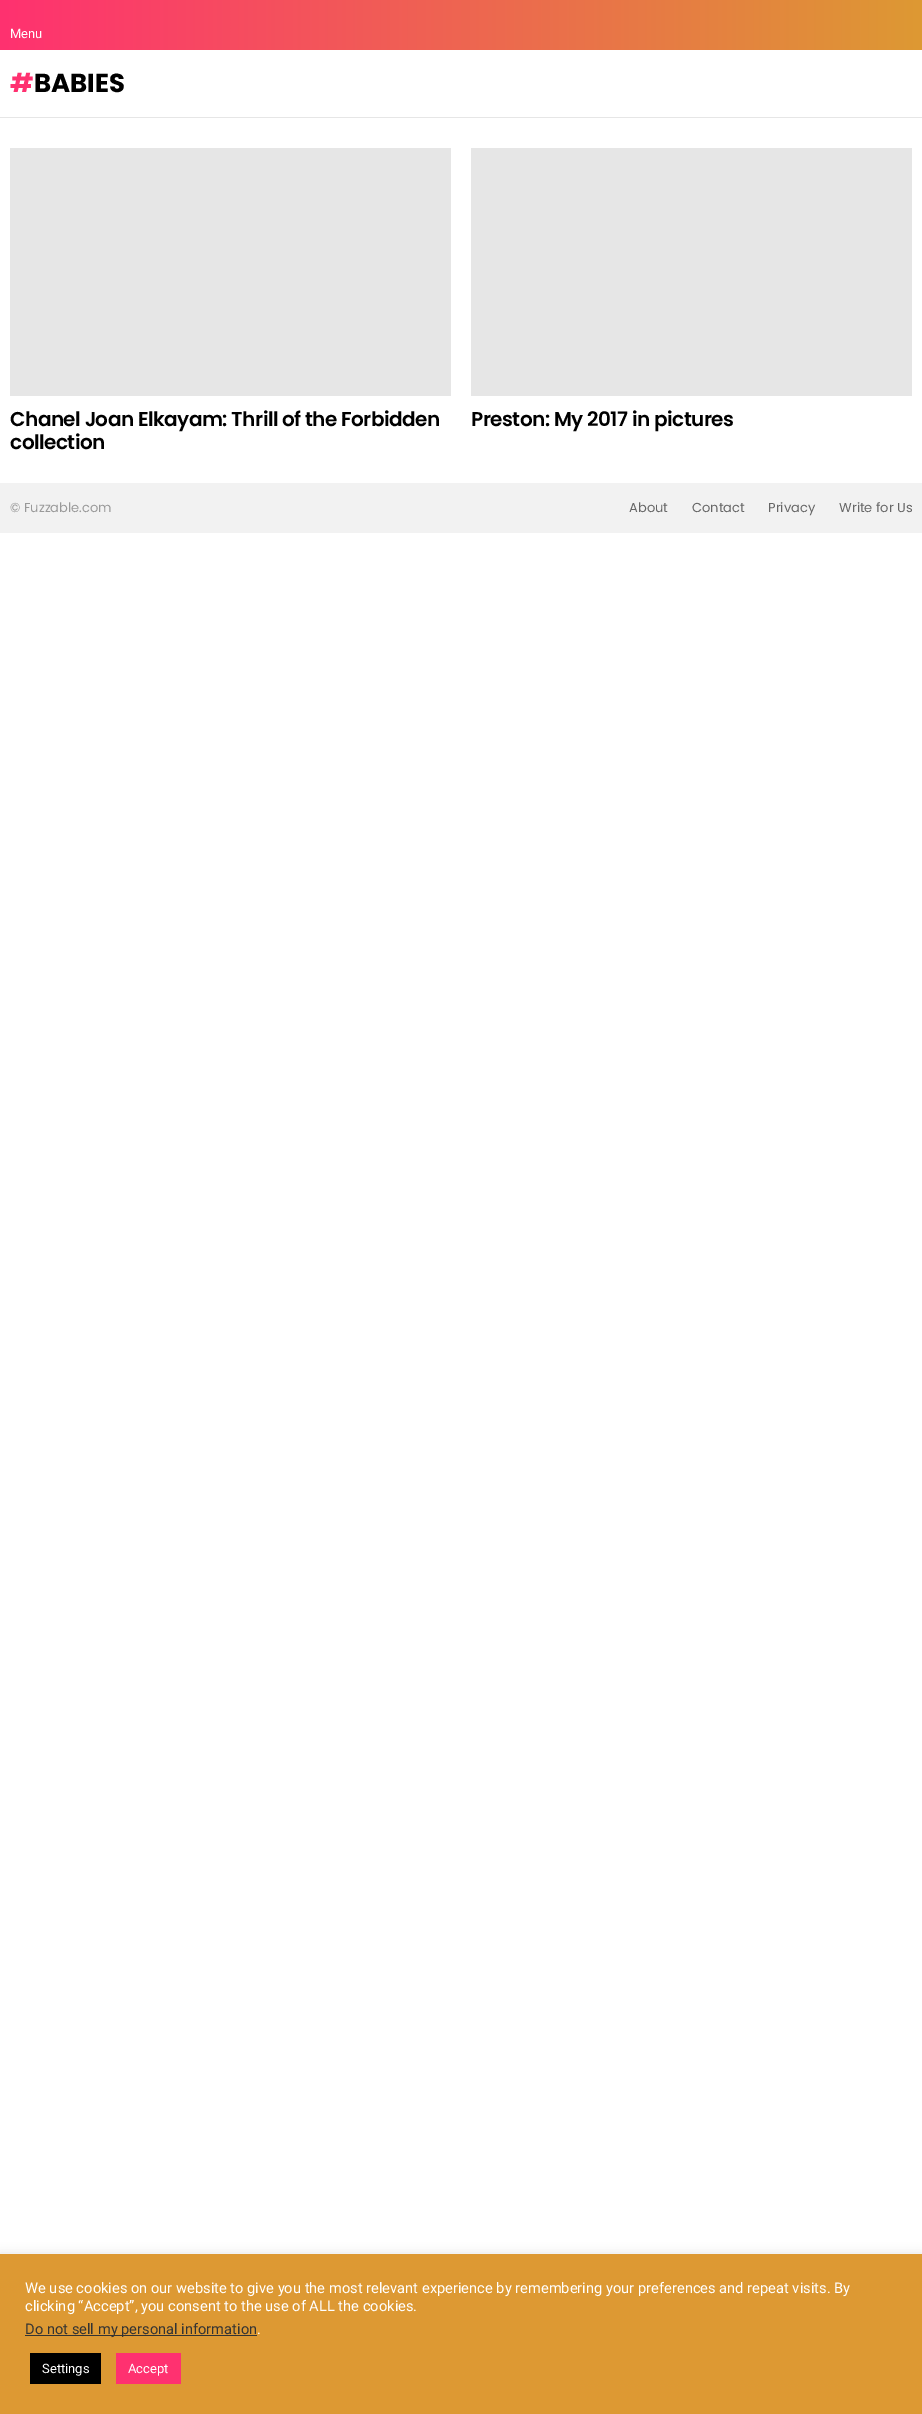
%!PS-Adobe-3.0
%%BoundingBox: 0 0 922 2414
%%LanguageLevel: 3
%%Pages: 1
%%EndComments
%%BeginProlog
/setink { dup -16 bitshift 255 div exch dup -8 bitshift 255 and 255 div exch 255 and 255 div setrgbcolor } def
/usefont { [ exch dup neg 0 0 3 -1 roll 0 0 ] selectfont } def
/setalpha { dup .setfillconstantalpha .setstrokeconstantalpha } def
/rrect { 5 dict begin { /r /h /w /y /x } { exch def } forall
  x r add y moveto x w add y 2 copy h add r arct x w add y h add x 1 index r arct
  x y h add x y r arct x y 2 copy exch w add exch r arct closepath end } def
/softshadow { 12 dict begin { /a /b /q /h /w /y /x } { exch def } forall gsave /was 0 def
  9 -2 -9 { dup b mul 4 div /e exch def 1 sub .425 mul 2.718 exch exp 1 add a .99 .min exch div /now exch def
    1 1 now sub 1 was sub div sub setalpha /was now def
    w h .min e 2 mul add 0 gt { x e sub y e sub w e 2 mul add h e 2 mul add
      q e add b .6 mul add w h .min 2 div e add .min 0 .max rrect fill } if } for grestore end } def
%%EndProlog
%%BeginSetup
<< /PageSize [922 2414] /PageUsesTransparency true >> setpagedevice
%%EndSetup
%%Page: 1 1
0 .pushpdf14devicefilter
0 2414 translate 1 -1 scale
4 setmiterlimit
16#FFFFFF setink
0 0 922 2414 rectfill
gsave 0 0 moveto 922 0 lineto 922 50 lineto 0 50 lineto closepath clip newpath
<< /ShadingType 2 /ColorSpace /DeviceRGB /Coords [0 25 922 25] /Extend [true true] /Function << /FunctionType 2 /Domain [0 1] /C0 [1 0.192 0.439] /C1 [0.867 0.6 0.2] /N 1 >> >> shfill grestore
/Roboto-Regular 13 usefont
10 38 moveto (Menu) show
/Poppins-Bold 26 usefont
16#FF3170 setink
10 92 moveto (#) show
16#000000 setink
34 92 moveto (BABIES) show
16#E6E6E6 setink
0 117 922 1 rectfill
10 148 441 248 rectfill
/Poppins-SemiBold 20 usefont
16#000000 setink
10 426 moveto -0.5 0 (Chanel Joan Elkayam: Thrill of the Forbidden) ashow
10 449 moveto -0.5 0 (collection) ashow
16#E6E6E6 setink
471 148 441 248 rectfill
16#000000 setink
471 426 moveto -0.5 0 (Preston: My 2017 in pictures) ashow
16#F2F2F2 setink
0 483 922 50 rectfill
/Poppins-Regular 13 usefont
16#999999 setink
10 512 moveto (© Fuzzable.com) show
16#666666 setink
[
    [(About) 629 512]
    [(Contact) 692 512]
    [(Privacy) 768 512]
    [(Write for Us) 839 512]
] { aload pop moveto show } forall
16#ACABAB setink
0 2253 922 160 0 5 0.3 softshadow
16#DD9933 setink
0 2254 922 160 rectfill
/Roboto-Regular 14.67 usefont
16#FFFFFF setink
25 2293 moveto (We use cookies on our website to give you the most relevant experience by remembering your preferences and repeat visits. By) show
25 2311 moveto (clicking “Accept”, you consent to the use of ALL the cookies.) show
16#333333 setink
25 2335 232 1 rectfill
25 2334 moveto (Do not sell my personal information) show
16#FFFFFF setink
257 2334 moveto (.) show
16#000000 setink
30 2353 71 31 rectfill
/Roboto-Regular 13 usefont
16#FFFFFF setink
42 2373 moveto (Settings) show
16#FF3170 setink
116 2353 65 31 rectfill
16#FFFFFF setink
128 2373 moveto (Accept) show
.poppdf14devicefilter showpage
%%EOF
